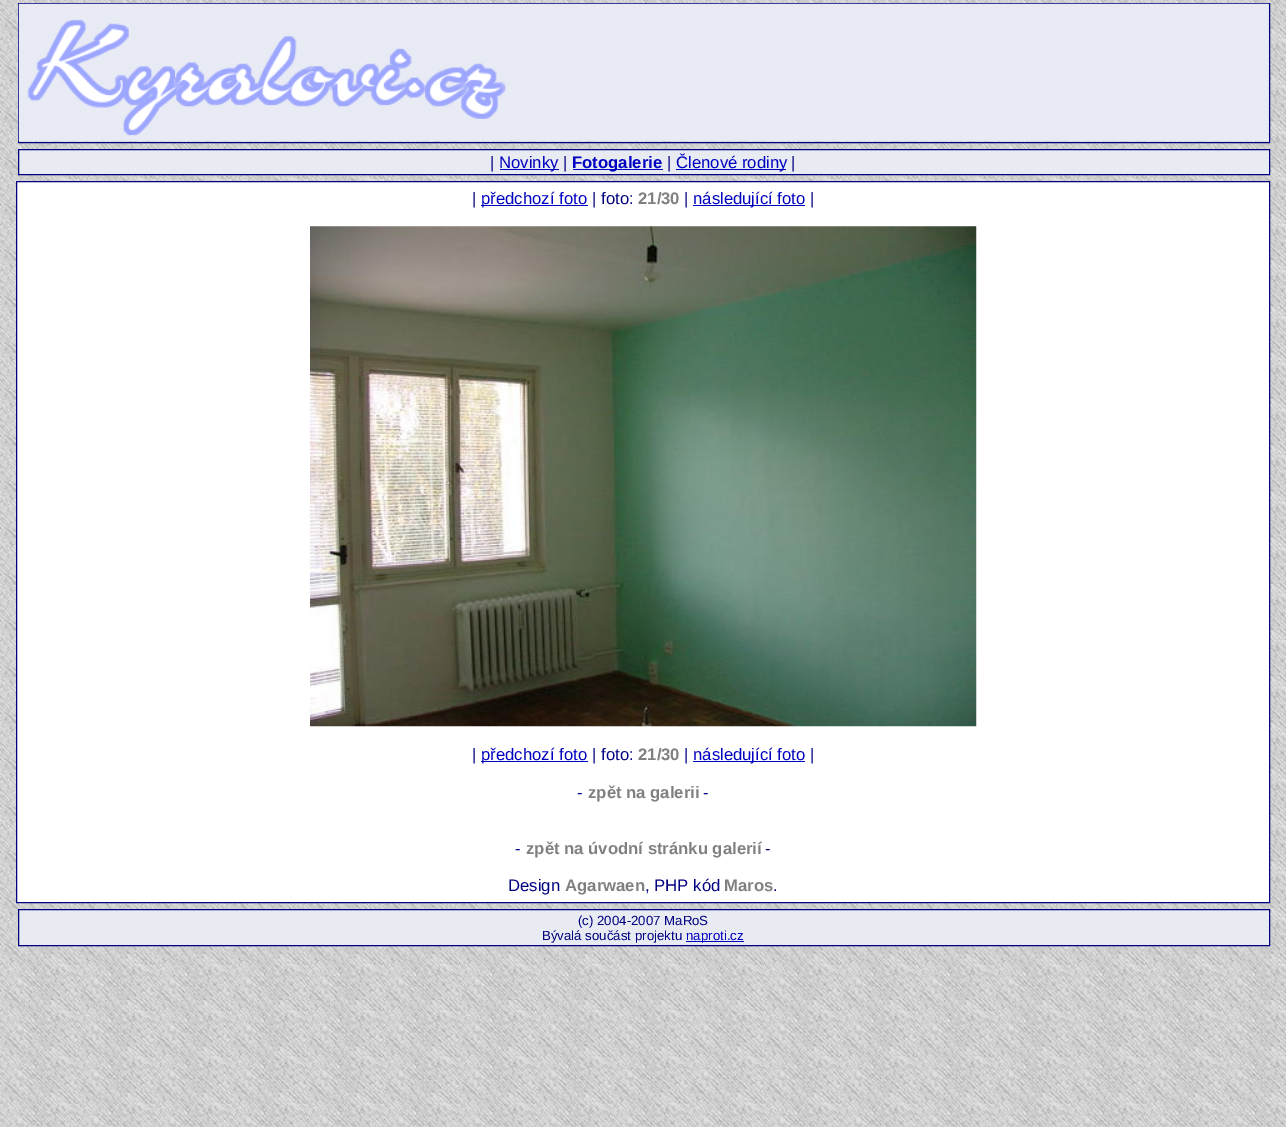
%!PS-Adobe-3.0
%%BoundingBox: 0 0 1286 1127
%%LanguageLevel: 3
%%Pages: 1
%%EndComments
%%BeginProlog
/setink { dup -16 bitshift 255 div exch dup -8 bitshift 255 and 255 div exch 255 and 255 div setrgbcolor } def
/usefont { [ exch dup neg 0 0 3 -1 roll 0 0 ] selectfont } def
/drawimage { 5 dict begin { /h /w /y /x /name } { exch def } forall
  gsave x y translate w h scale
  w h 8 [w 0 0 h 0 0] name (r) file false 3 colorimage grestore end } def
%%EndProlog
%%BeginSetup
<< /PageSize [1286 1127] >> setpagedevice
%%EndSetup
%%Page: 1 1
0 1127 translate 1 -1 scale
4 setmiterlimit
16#FFFFFF setink
0 0 1286 1127 rectfill
(img1.raw) 0 0 1286 1127 drawimage
16#000080 setink
18.5 3.5 1251 139 rectstroke
(img2.raw) 18 3 1251 139 drawimage
16#E8ECF2 setink
18.5 149.5 moveto 1269.5 149.5 lineto 1269.5 174.5 lineto 18.5 174.5 lineto closepath gsave fill grestore
16#000080 setink
stroke
/LiberationSans-Regular 16.7 usefont
490 168 moveto (|) show
16#0000C0 setink
500 169 59 1 rectfill
499 168 moveto (Novinky) show
16#000080 setink
563 168 moveto (|) show
16#0000C0 setink
573 169 90 1 rectfill
/LiberationSans-Bold 16.7 usefont
572 168 moveto (Fotogalerie) show
/LiberationSans-Regular 16.7 usefont
16#000080 setink
667 168 moveto (|) show
16#0000C0 setink
676 169 110 1 rectfill
676 168 moveto (Členové rodiny) show
16#000080 setink
791 168 moveto (|) show
16#FFFFFF setink
16.5 181.5 moveto 1269.5 181.5 lineto 1269.5 902.5 lineto 16.5 902.5 lineto closepath gsave fill grestore
16#000080 setink
stroke
472 204 moveto (|) show
16#0000C0 setink
481 205 107 1 rectfill
481 204 moveto (předchozí foto) show
16#000080 setink
592 204 moveto (| foto:) show
/LiberationSans-Bold 16.7 usefont
16#808080 setink
638 204 moveto (21/30) show
/LiberationSans-Regular 16.7 usefont
16#000080 setink
684 204 moveto (|) show
16#0000C0 setink
693 205 112 1 rectfill
693 204 moveto (následující foto) show
16#000080 setink
810 204 moveto (|) show
(img3.raw) 310 226 667 501 drawimage
472 760 moveto (|) show
16#0000C0 setink
481 761 107 1 rectfill
481 760 moveto (předchozí foto) show
16#000080 setink
592 760 moveto (| foto:) show
/LiberationSans-Bold 16.7 usefont
16#808080 setink
638 760 moveto (21/30) show
/LiberationSans-Regular 16.7 usefont
16#000080 setink
684 760 moveto (|) show
16#0000C0 setink
693 761 112 1 rectfill
693 760 moveto (následující foto) show
16#000080 setink
810 760 moveto (|) show
577 798 moveto (-) show
/LiberationSans-Bold 16.7 usefont
16#808080 setink
588 798 moveto (zpět na galerii) show
/LiberationSans-Regular 16.7 usefont
16#000080 setink
703 798 moveto (-) show
515 854 moveto (-) show
/LiberationSans-Bold 16.7 usefont
16#808080 setink
526 854 moveto (zpět na úvodní stránku galerií) show
/LiberationSans-Regular 16.7 usefont
16#000080 setink
765 854 moveto (-) show
508 891 moveto (Design) show
/LiberationSans-Bold 16.7 usefont
16#808080 setink
565 891 moveto (Agarwaen) show
/LiberationSans-Regular 16.7 usefont
16#000080 setink
645 891 moveto (, PHP kód) show
/LiberationSans-Bold 16.7 usefont
16#808080 setink
724 891 moveto (Maros) show
/LiberationSans-Regular 16.7 usefont
16#000080 setink
773 891 moveto (.) show
16#E8ECF2 setink
18.5 909.5 moveto 1269.5 909.5 lineto 1269.5 945.5 lineto 18.5 945.5 lineto closepath gsave fill grestore
16#000080 setink
stroke
/LiberationSans-Regular 13.25 usefont
578 925 moveto (\(c\) 2004-2007 MaRoS) show
542 940 moveto (Bývalá součást projektu) show
16#0000C0 setink
686 941 58 1 rectfill
686 940 moveto (naproti.cz) show
showpage
%%EOF
